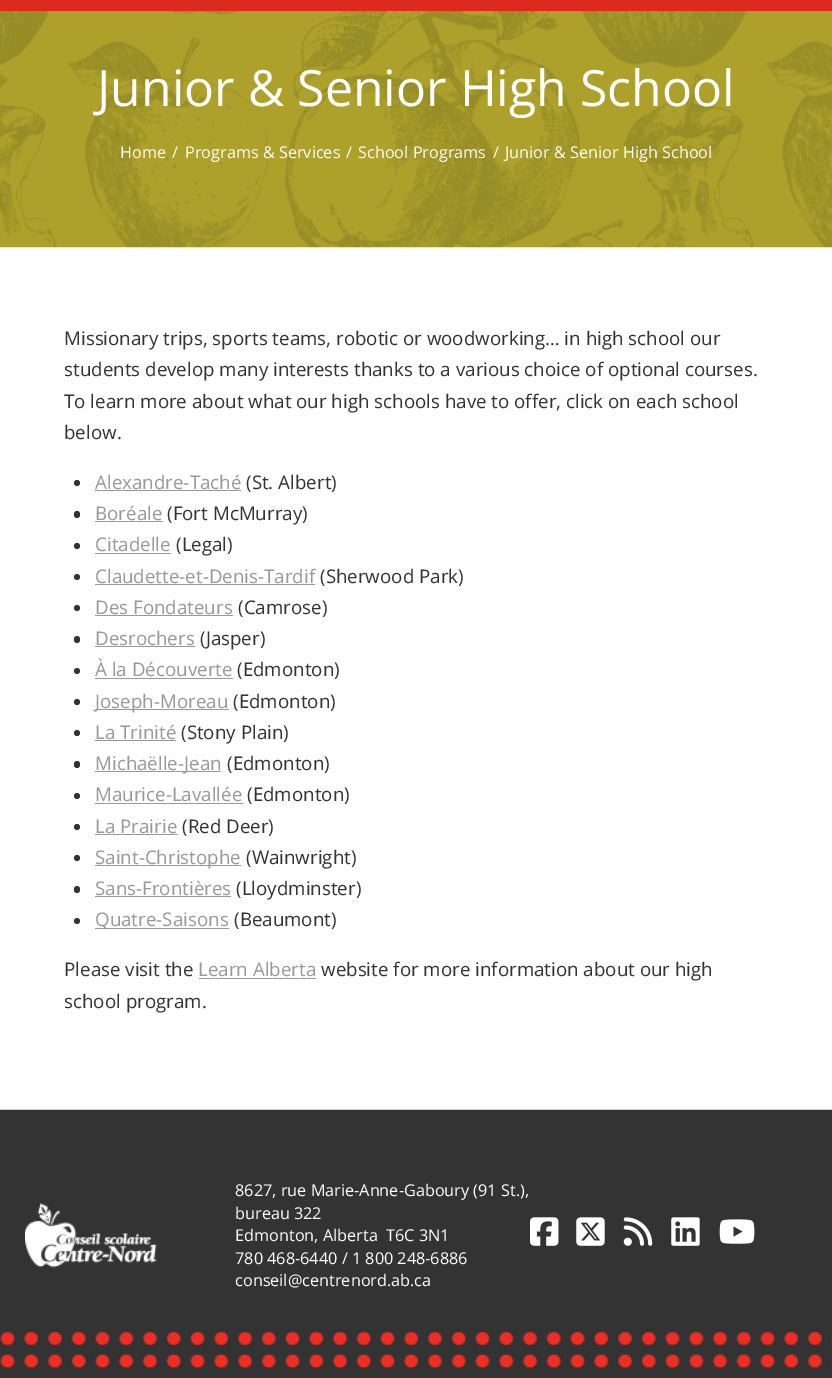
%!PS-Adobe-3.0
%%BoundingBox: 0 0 832 1378
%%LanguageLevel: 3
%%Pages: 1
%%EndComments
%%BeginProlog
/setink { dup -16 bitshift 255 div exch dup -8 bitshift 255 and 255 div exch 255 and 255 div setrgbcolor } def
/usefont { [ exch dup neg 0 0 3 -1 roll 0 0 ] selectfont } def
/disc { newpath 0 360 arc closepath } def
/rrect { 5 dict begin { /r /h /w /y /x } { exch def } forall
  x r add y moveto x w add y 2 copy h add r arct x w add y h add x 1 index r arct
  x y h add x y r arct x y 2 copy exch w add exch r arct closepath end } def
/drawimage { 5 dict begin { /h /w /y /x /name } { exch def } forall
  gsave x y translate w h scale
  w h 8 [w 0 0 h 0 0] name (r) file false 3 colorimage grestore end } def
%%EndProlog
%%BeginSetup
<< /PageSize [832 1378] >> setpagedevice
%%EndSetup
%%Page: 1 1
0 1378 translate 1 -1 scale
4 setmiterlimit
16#FFFFFF setink
0 0 832 1378 rectfill
16#DD291E setink
0 0 832 11 rectfill
(img1.raw) 0 11 832 237 drawimage
/OpenSans-Regular 50 usefont
16#FFFFFF setink
97 106 moveto (Junior & Senior High School) show
/OpenSans-Regular 16.25 usefont
[
    [(Home) 120 158]
    [(/) 172 158]
    [(Programs & Services) 185 158]
    [(/) 346 158]
    [(School Programs) 358 158]
    [(/) 493 158]
    [(Junior & Senior High School) 505 158]
] { aload pop moveto show } forall
/OpenSans-Regular 18.75 usefont
16#333333 setink
[
    [(Missionary trips, sports teams, robotic or woodworking… in high school our) 64 345]
    [(students develop many interests thanks to a various choice of optional courses.) 64 376]
    [(To learn more about what our high schools have to offer, click on each school) 64 408]
    [(below.) 64 439]
] { aload pop moveto show } forall
77 483 3 disc fill
16#999999 setink
95 489 moveto (Alexandre-Taché) show
95 490 146 1 rectfill
16#333333 setink
246 489 moveto (\(St. Albert\)) show
74 511 6 7 3 rrect fill
16#999999 setink
95 520 moveto (Boréale) show
95 521 68 1 rectfill
16#333333 setink
167 520 moveto (\(Fort McMurray\)) show
77 546 3 disc fill
16#999999 setink
95 551 moveto (Citadelle) show
95 553 76 1 rectfill
16#333333 setink
176 551 moveto (\(Legal\)) show
77 577 3 disc fill
16#999999 setink
95 583 moveto (Claudette-et-Denis-Tardif) show
95 584 220 1 rectfill
16#333333 setink
320 583 moveto (\(Sherwood Park\)) show
77 608 3 disc fill
16#999999 setink
95 614 moveto (Des Fondateurs) show
95 615 138 1 rectfill
16#333333 setink
238 614 moveto (\(Camrose\)) show
74 636 6 7 3 rrect fill
16#999999 setink
95 645 moveto (Desrochers) show
95 646 100 1 rectfill
16#333333 setink
200 645 moveto (\(Jasper\)) show
77 671 3 disc fill
16#999999 setink
95 676 moveto (À la Découverte) show
95 678 138 1 rectfill
16#333333 setink
237 676 moveto (\(Edmonton\)) show
77 702 3 disc fill
16#999999 setink
95 709 134 1 rectfill
95 708 moveto (Joseph-Moreau) show
16#333333 setink
233 708 moveto (\(Edmonton\)) show
77 733 3 disc fill
16#999999 setink
95 739 moveto (La Trinité) show
95 740 81 1 rectfill
16#333333 setink
181 739 moveto (\(Stony Plain\)) show
74 761 6 7 3 rrect fill
16#999999 setink
95 771 126 1 rectfill
95 770 moveto (Michaëlle-Jean) show
16#333333 setink
227 770 moveto (\(Edmonton\)) show
77 796 3 disc fill
16#999999 setink
95 801 moveto (Maurice-Lavallée) show
95 803 148 1 rectfill
16#333333 setink
247 801 moveto (\(Edmonton\)) show
77 827 3 disc fill
16#999999 setink
95 833 moveto (La Prairie) show
95 834 83 1 rectfill
16#333333 setink
182 833 moveto (\(Red Deer\)) show
77 858 3 disc fill
16#999999 setink
95 865 146 1 rectfill
95 864 moveto (Saint-Christophe) show
16#333333 setink
246 864 moveto (\(Wainwright\)) show
74 886 6 7 3 rrect fill
16#999999 setink
95 895 moveto (Sans-Frontières) show
95 896 136 1 rectfill
16#333333 setink
236 895 moveto (\(Lloydminster\)) show
77 921 3 disc fill
16#999999 setink
95 928 134 1 rectfill
95 926 moveto (Quatre-Saisons) show
16#333333 setink
234 926 moveto (\(Beaumont\)) show
64 976 moveto (Please visit the) show
16#999999 setink
198 976 moveto (Learn Alberta) show
199 978 117 1 rectfill
16#333333 setink
321 976 moveto (website for more information about our high) show
64 1008 moveto (school program.) show
(img2.raw) 0 1109 832 269 drawimage
(img3.raw) 25 1203 132 65 drawimage
/OpenSans-Regular 16.25 usefont
16#FFFFFF setink
[
    [(8627, rue Marie-Anne-Gaboury \(91 St.\),) 235 1196]
    [(bureau 322) 235 1219]
    [(Edmonton, Alberta  T6C 3N1) 235 1241]
    [(780 468-6440 / 1 800 248-6886) 235 1264]
    [(conseil@centrenord.ab.ca) 235 1286]
] { aload pop moveto show } forall
(img4.raw) 530 1217 29 29 drawimage
(img5.raw) 576 1217 29 29 drawimage
(img6.raw) 623 1217 30 29 drawimage
(img7.raw) 671 1217 29 29 drawimage
(img8.raw) 719 1219 36 25 drawimage
showpage
%%EOF
